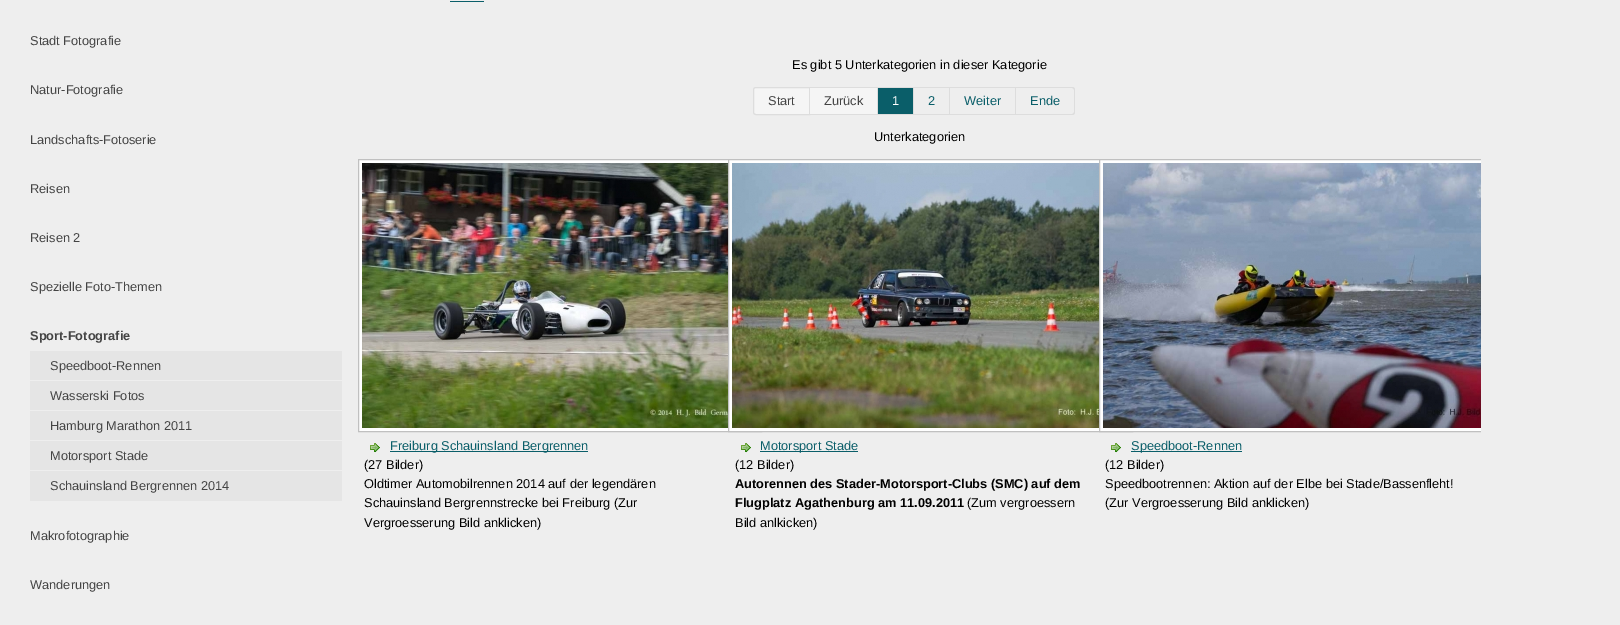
%!PS-Adobe-3.0
%%BoundingBox: 0 0 1620 625
%%LanguageLevel: 3
%%Pages: 1
%%EndComments
%%BeginProlog
/setink { dup -16 bitshift 255 div exch dup -8 bitshift 255 and 255 div exch 255 and 255 div setrgbcolor } def
/usefont { [ exch dup neg 0 0 3 -1 roll 0 0 ] selectfont } def
/drawimage { 5 dict begin { /h /w /y /x /name } { exch def } forall
  gsave x y translate w h scale
  w h 8 [w 0 0 h 0 0] name (r) file false 3 colorimage grestore end } def
%%EndProlog
%%BeginSetup
<< /PageSize [1620 625] >> setpagedevice
%%EndSetup
%%Page: 1 1
0 625 translate 1 -1 scale
4 setmiterlimit
16#EEEEEE setink
0 0 1620 625 rectfill
/LiberationSans-Regular 12.8 usefont
16#444444 setink
[
    [(Stadt Fotografie) 30 45]
    [(Natur-Fotografie) 30 94]
    [(Landschafts-Fotoserie) 30 144]
    [(Reisen) 30 193]
    [(Reisen 2) 30 242]
    [(Spezielle Foto-Themen) 30 291]
] { aload pop moveto show } forall
/LiberationSans-Bold 12.8 usefont
30 340 moveto (Sport-Fotografie) show
16#E5E5E5 setink
30 351 312 29 rectfill
/LiberationSans-Regular 12.8 usefont
16#444444 setink
50 370 moveto (Speedboot-Rennen) show
16#E5E5E5 setink
30 381 312 29 rectfill
16#444444 setink
50 400 moveto (Wasserski Fotos) show
16#E5E5E5 setink
30 411 312 29 rectfill
16#444444 setink
50 430 moveto (Hamburg Marathon 2011) show
16#E5E5E5 setink
30 441 312 29 rectfill
16#444444 setink
50 460 moveto (Motorsport Stade) show
16#E5E5E5 setink
30 471 312 30 rectfill
16#444444 setink
[
    [(Schauinsland Bergrennen 2014) 50 490]
    [(Makrofotographie) 30 540]
    [(Wanderungen) 30 589]
] { aload pop moveto show } forall
16#0A5E69 setink
450 1 34 1 rectfill
16#000000 setink
792 69 moveto (Es gibt 5 Unterkategorien in dieser Kategorie) show
16#F5F5F5 setink
756 87.5 moveto 809.5 87.5 lineto 809.5 114.5 lineto 756 114.5 lineto 754.5 114.5 753.5 113.5 753.5 112 curveto 753.5 90 lineto 753.5 88.5 754.5 87.5 756 87.5 curveto closepath gsave fill grestore
16#DDDDDD setink
stroke
16#444444 setink
768 105 moveto (Start) show
[
    [810 88 67 26 16#F5F5F5]
    [810 87 206 1 16#DDDDDD]
    [877 87 1 28 16#DDDDDD]
    [810 114 68 1 16#DDDDDD]
] { aload pop setink rectfill } forall
16#444444 setink
824 105 moveto (Zurück) show
[
    [878 88 35 26 16#0A5E69]
    [913 87 1 28 16#DDDDDD]
    [878 114 36 1 16#DDDDDD]
] { aload pop setink rectfill } forall
16#FFFFFF setink
892 105 moveto (1) show
16#DDDDDD setink
949 87 1 28 rectfill
914 114 36 1 rectfill
16#0A5E69 setink
928 105 moveto (2) show
16#DDDDDD setink
1015 87 1 28 rectfill
950 114 66 1 rectfill
16#0A5E69 setink
964 105 moveto (Weiter) show
16#DDDDDD setink
1016 87 moveto 1072 87 lineto 1074 87 1075 88 1075 90 curveto 1075 112 lineto 1075 114 1074 115 1072 115 curveto 1016 115 lineto closepath 1016 88 moveto 1072 88 lineto 1073 88 1074 89 1074 90 curveto 1074 112 lineto 1074 113 1073 114 1072 114 curveto 1016 114 lineto closepath eofill
16#0A5E69 setink
1030 105 moveto (Ende) show
16#000000 setink
874 141 moveto (Unterkategorien) show
16#FFFFFF setink
359 160 369 271 rectfill
16#C0C0C0 setink
358.5 159.5 403 272 rectstroke
(img1.raw) 362 163 366 265 drawimage
(img2.raw) 370 443 10 10 drawimage
16#0A5E69 setink
390 451 198 1 rectfill
390 450 moveto (Freiburg Schauinsland Bergrennen) show
16#000000 setink
[
    [(\(27 Bilder\)) 364 469]
    [(Oldtimer Automobilrennen 2014 auf der legendären) 364 488]
    [(Schauinsland Bergrennstrecke bei Freiburg \(Zur) 364 507]
    [(Vergroesserung Bild anklicken\)) 364 527]
] { aload pop moveto show } forall
16#FFFFFF setink
729 160 370 271 rectfill
16#C0C0C0 setink
728.5 159.5 404 272 rectstroke
(img3.raw) 732 163 367 265 drawimage
(img2.raw) 741 443 10 10 drawimage
16#0A5E69 setink
760 451 98 1 rectfill
760 450 moveto (Motorsport Stade) show
16#000000 setink
735 469 moveto (\(12 Bilder\)) show
/LiberationSans-Bold 12.8 usefont
735 488 moveto (Autorennen des Stader-Motorsport-Clubs \(SMC\) auf dem) show
735 507 moveto (Flugplatz Agathenburg am 11.09.2011) show
/LiberationSans-Regular 12.8 usefont
967 507 moveto (\(Zum vergroessern) show
735 527 moveto (Bild anlkicken\)) show
16#FFFFFF setink
1100 160 381 271 rectfill
gsave
358 149 1123 412 rectclip
16#C0C0C0 setink
1099.5 159.5 404 272 rectstroke
grestore
(img4.raw) 1103 163 378 265 drawimage
(img2.raw) 1111 443 10 10 drawimage
16#0A5E69 setink
1131 451 111 1 rectfill
1131 450 moveto (Speedboot-Rennen) show
16#000000 setink
[
    [(\(12 Bilder\)) 1105 469]
    [(Speedbootrennen: Aktion auf der Elbe bei Stade/Bassenfleht!) 1105 488]
    [(\(Zur Vergroesserung Bild anklicken\)) 1105 507]
] { aload pop moveto show } forall
showpage
%%EOF
